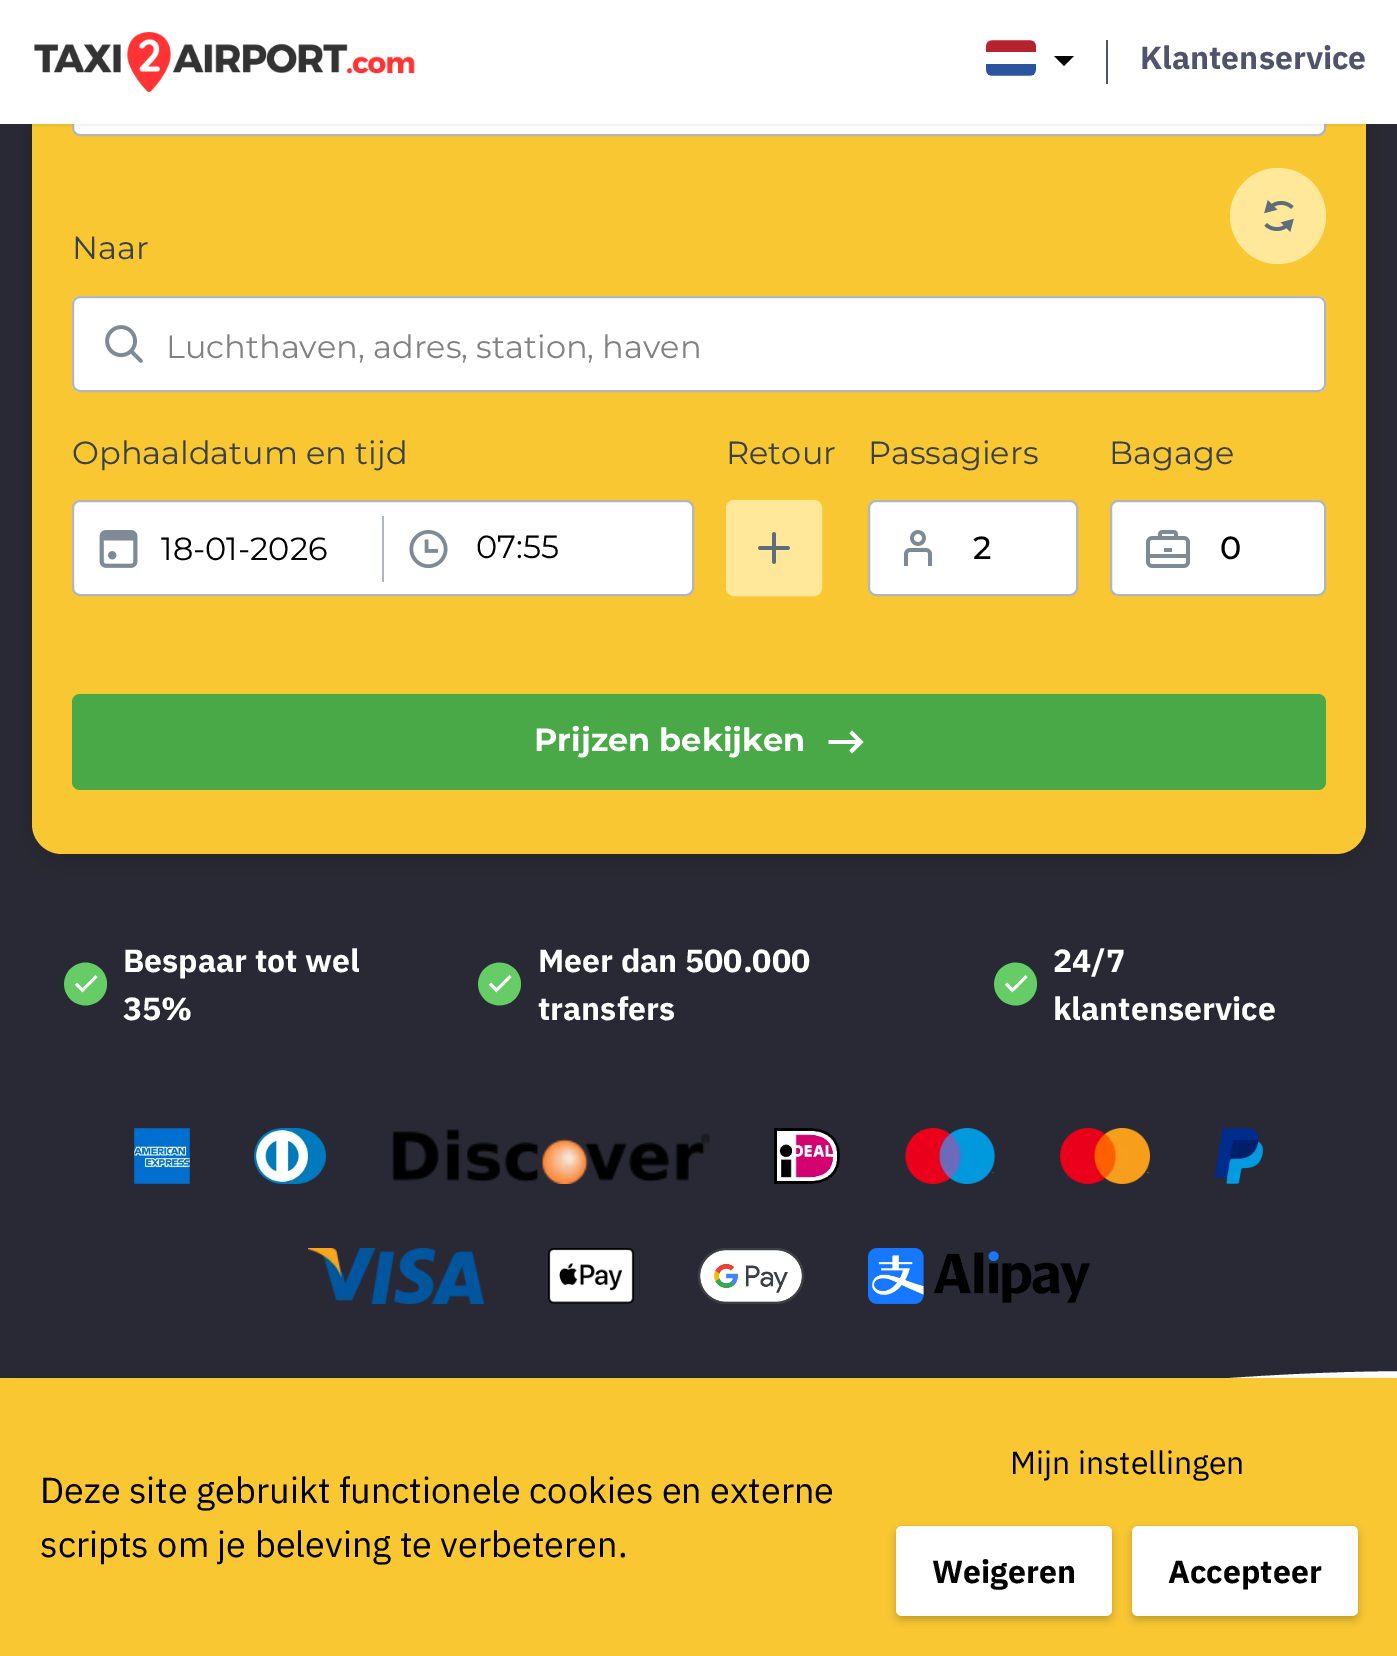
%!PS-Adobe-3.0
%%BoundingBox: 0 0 1397 1656
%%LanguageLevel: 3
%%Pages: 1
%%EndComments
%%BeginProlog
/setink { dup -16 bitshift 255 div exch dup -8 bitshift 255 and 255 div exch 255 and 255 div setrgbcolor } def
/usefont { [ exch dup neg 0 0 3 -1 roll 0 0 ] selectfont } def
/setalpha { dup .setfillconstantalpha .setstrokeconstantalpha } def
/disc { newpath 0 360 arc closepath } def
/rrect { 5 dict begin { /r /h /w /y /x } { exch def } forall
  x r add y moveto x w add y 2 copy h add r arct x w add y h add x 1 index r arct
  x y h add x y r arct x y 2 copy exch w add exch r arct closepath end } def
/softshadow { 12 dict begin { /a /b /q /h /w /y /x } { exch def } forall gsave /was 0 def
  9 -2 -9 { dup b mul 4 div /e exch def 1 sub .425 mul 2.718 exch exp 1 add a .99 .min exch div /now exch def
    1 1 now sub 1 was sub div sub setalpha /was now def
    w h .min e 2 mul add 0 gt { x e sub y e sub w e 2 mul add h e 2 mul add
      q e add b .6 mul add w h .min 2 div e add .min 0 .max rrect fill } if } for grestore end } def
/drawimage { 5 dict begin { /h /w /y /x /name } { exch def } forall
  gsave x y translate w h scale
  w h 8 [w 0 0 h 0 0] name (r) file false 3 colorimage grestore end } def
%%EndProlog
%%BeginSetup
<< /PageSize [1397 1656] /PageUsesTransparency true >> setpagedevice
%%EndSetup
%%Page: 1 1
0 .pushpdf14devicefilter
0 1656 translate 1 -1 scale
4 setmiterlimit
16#FFFFFF setink
0 0 1397 1656 rectfill
16#282934 setink
0 124 1397 1244 rectfill
16#000000 setink
32 -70 1334 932 30 16 0.16 softshadow
16#F8C732 setink
32 -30 1334 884 30 rrect fill
16#FFFFFF setink
73 41 1252 94 7 rrect gsave fill grestore
16#AFB6BE setink
2 setlinewidth
stroke
16#000000 setink
0 2 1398 124 0 1 0.05 softshadow
16#FFFFFF setink
0 0 1397 124 rectfill
(img1.raw) 34 32 381 60 drawimage
(img2.raw) 986 40 50 36 drawimage
16#000000 setink
1054 56 moveto 1074 56 lineto 1064 66 lineto closepath fill
16#51536D setink
1106 40 2 44 rectfill
/IBMPlexSans-Bold 32 usefont
1140 69 moveto (Klantenservice) show
16#FFE89A setink
1278 216 48 disc fill
(img3.raw) 1264 200 30 32 drawimage
/Montserrat-Regular 32 usefont
16#38414A setink
72 259 moveto (Naar) show
16#FFFFFF setink
72 296 1254 96 8 rrect fill
(img4.raw) 105 325 38 38 drawimage
16#AFB6BE setink
73 297 1252 94 7 rrect stroke
16#818181 setink
166 358 moveto (Luchthaven, adres, station, haven) show
16#38414A setink
72 464 moveto (Ophaaldatum en tijd) show
16#FFFFFF setink
73 501 620 94 7 rrect gsave fill grestore
16#AFB6BE setink
stroke
(img5.raw) 99 530 39 38 drawimage
16#000000 setink
161 560 moveto (18-01-2026) show
16#AFB6BE setink
382 516 2 66 rectfill
(img6.raw) 409 530 39 38 drawimage
16#000000 setink
476 558 moveto (07:55) show
16#38414A setink
726 464 moveto (Retour) show
16#FFE89A setink
727 501 94 94 7 rrect gsave fill grestore
stroke
(img7.raw) 758 532 32 32 drawimage
16#38414A setink
868 464 moveto (Passagiers) show
16#FFFFFF setink
869 501 208 94 7 rrect gsave fill grestore
16#AFB6BE setink
stroke
(img8.raw) 904 530 28 36 drawimage
/Montserrat-Medium 32 usefont
16#000000 setink
973 559 moveto (2) show
/Montserrat-Regular 32 usefont
16#38414A setink
1109 464 moveto (Bagage) show
16#FFFFFF setink
1111 501 214 94 7 rrect gsave fill grestore
16#AFB6BE setink
stroke
(img9.raw) 1146 530 44 38 drawimage
/Montserrat-Medium 32 usefont
16#000000 setink
1220 559 moveto (0) show
16#48A946 setink
72 694 1254 96 8 rrect fill
/Montserrat-Bold 32 usefont
16#FFFFFF setink
534 751 moveto (Prijzen bekijken) show
852 730.5 moveto 849.5 733.5 lineto 856 740 lineto 828.5 740 lineto 828.5 744 lineto 855.5 744 lineto 849.5 750.5 lineto 852 753.5 lineto 863.5 742 lineto closepath fill
(img10.raw) 64 962 43 44 drawimage
/IBMPlexSans-Bold 32 usefont
123 972 moveto (Bespaar tot wel) show
123 1020 moveto (35%) show
(img11.raw) 478 962 43 44 drawimage
538 972 moveto (Meer dan 500.000) show
538 1020 moveto (transfers) show
(img12.raw) 994 962 43 44 drawimage
1053 972 moveto (24/7) show
1053 1020 moveto (klantenservice) show
(img13.raw) 134 1128 56 56 drawimage
(img14.raw) 254 1128 72 56 drawimage
(img15.raw) 392 1129 318 55 drawimage
(img16.raw) 774 1128 66 56 drawimage
(img17.raw) 905 1128 91 56 drawimage
(img18.raw) 1060 1128 90 56 drawimage
(img19.raw) 1214 1128 50 56 drawimage
(img20.raw) 308 1248 176 56 drawimage
(img21.raw) 548 1248 86 56 drawimage
(img22.raw) 698 1248 106 56 drawimage
(img23.raw) 868 1248 222 56 drawimage
16#282934 setink
0 1455 moveto 0 1455 349 1476 595 1452 curveto 807 1431 1109 1373 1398 1371 curveto 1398 1368 lineto 0 1368 lineto closepath fill
16#000000 setink
0 1382 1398 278 10 4 0.2 softshadow
16#F8C732 setink
0 1378 1397 278 rectfill
/IBMPlexSans-Regular 36 usefont
16#000000 setink
40 1503 moveto (Deze site gebruikt functionele cookies en externe) show
40 1557 moveto (scripts om je beleving te verbeteren.) show
/IBMPlexSans-Regular 32 usefont
1010 1474 moveto (Mijn instellingen) show
896 1530 216 90 6 4 0.2 softshadow
16#FFFFFF setink
896 1526 216 90 6 rrect fill
/IBMPlexSans-Bold 32 usefont
16#000000 setink
932 1583 moveto (Weigeren) show
1132 1530 226 90 6 4 0.2 softshadow
16#FFFFFF setink
1132 1526 226 90 6 rrect fill
16#000000 setink
1168 1583 moveto (Accepteer) show
.poppdf14devicefilter showpage
%%EOF
